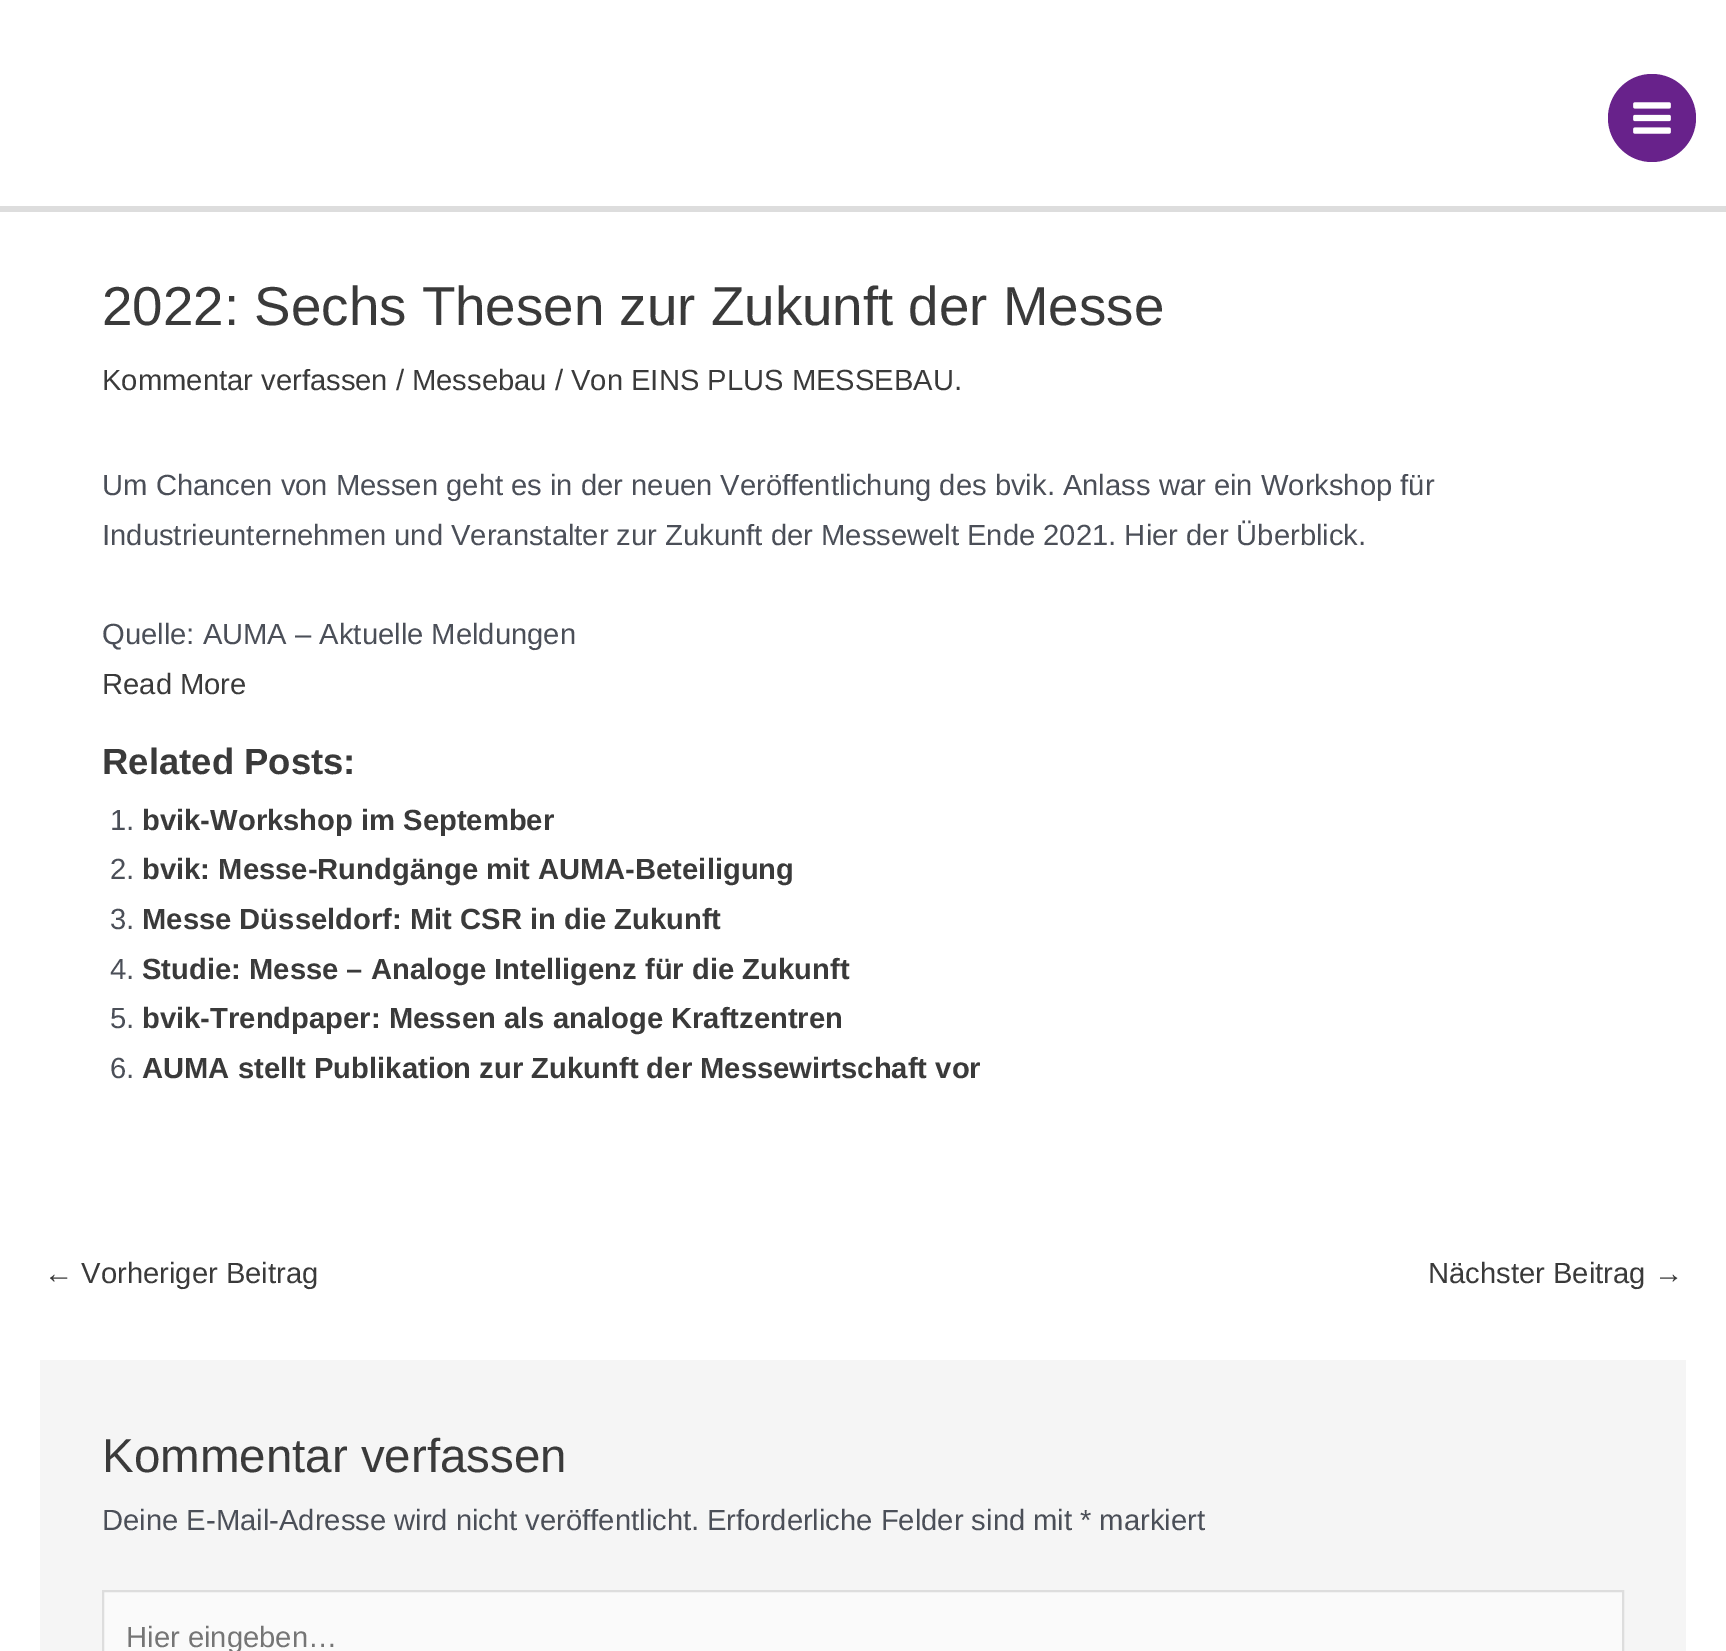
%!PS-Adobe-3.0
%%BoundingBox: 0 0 1726 1651
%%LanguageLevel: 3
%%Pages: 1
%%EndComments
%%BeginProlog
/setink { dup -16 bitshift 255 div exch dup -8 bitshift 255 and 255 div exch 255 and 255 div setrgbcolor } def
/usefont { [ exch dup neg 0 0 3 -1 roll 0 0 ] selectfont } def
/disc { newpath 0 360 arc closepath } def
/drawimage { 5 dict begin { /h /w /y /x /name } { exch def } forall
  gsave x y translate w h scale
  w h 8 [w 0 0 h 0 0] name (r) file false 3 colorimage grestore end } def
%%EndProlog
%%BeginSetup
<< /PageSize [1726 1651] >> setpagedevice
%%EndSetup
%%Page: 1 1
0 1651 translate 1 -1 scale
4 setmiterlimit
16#FFFFFF setink
0 0 1726 1651 rectfill
16#DDDDDD setink
0 206 1726 6 rectfill
16#68228B setink
1652 118 44 disc fill
(img1.raw) 1633 102 38 32 drawimage
/LiberationSans-Regular 54.75 usefont
16#3A3A3A setink
102 325 moveto (2022: Sechs Thesen zur Zukunft der Messe) show
/LiberationSans-Regular 29.2 usefont
102 390 moveto (Kommentar verfassen / Messebau / Von EINS PLUS MESSEBAU.) show
16#4B4F58 setink
[
    [(Um Chancen von Messen geht es in der neuen Veröffentlichung des bvik. Anlass war ein Workshop für) 102 495]
    [(Industrieunternehmen und Veranstalter zur Zukunft der Messewelt Ende 2021. Hier der Überblick.) 102 545]
    [(Quelle: AUMA – Aktuelle Meldungen) 102 644]
] { aload pop moveto show } forall
16#3A3A3A setink
102 694 moveto (Read More) show
/LiberationSans-Bold 36.5 usefont
102 774 moveto (Related Posts:) show
/LiberationSans-Regular 29.2 usefont
16#4B4F58 setink
110 830 moveto (1.) show
/LiberationSans-Bold 29.2 usefont
16#3A3A3A setink
142 830 moveto (bvik-Workshop im September) show
/LiberationSans-Regular 29.2 usefont
16#4B4F58 setink
110 879 moveto (2.) show
/LiberationSans-Bold 29.2 usefont
16#3A3A3A setink
142 879 moveto (bvik: Messe-Rundgänge mit AUMA-Beteiligung) show
/LiberationSans-Regular 29.2 usefont
16#4B4F58 setink
110 929 moveto (3.) show
/LiberationSans-Bold 29.2 usefont
16#3A3A3A setink
142 929 moveto (Messe Düsseldorf: Mit CSR in die Zukunft) show
/LiberationSans-Regular 29.2 usefont
16#4B4F58 setink
110 979 moveto (4.) show
/LiberationSans-Bold 29.2 usefont
16#3A3A3A setink
142 979 moveto (Studie: Messe – Analoge Intelligenz für die Zukunft) show
/LiberationSans-Regular 29.2 usefont
16#4B4F58 setink
110 1028 moveto (5.) show
/LiberationSans-Bold 29.2 usefont
16#3A3A3A setink
142 1028 moveto (bvik-Trendpaper: Messen als analoge Kraftzentren) show
/LiberationSans-Regular 29.2 usefont
16#4B4F58 setink
110 1078 moveto (6.) show
/LiberationSans-Bold 29.2 usefont
16#3A3A3A setink
142 1078 moveto (AUMA stellt Publikation zur Zukunft der Messewirtschaft vor) show
/LiberationSans-Regular 29.2 usefont
44 1283 moveto (← Vorheriger Beitrag) show
1428 1283 moveto (Nächster Beitrag →) show
16#F5F5F5 setink
40 1360 1646 291 rectfill
/LiberationSans-Regular 47.5 usefont
16#3A3A3A setink
102 1472 moveto (Kommentar verfassen) show
/LiberationSans-Regular 29.2 usefont
16#4B4F58 setink
[
    [(Deine E-Mail-Adresse wird nicht veröffentlicht.) 102 1530]
    [(Erforderliche Felder sind mit) 707 1530]
    [(* markiert) 1080 1530]
] { aload pop moveto show } forall
16#FAFAFA setink
103 1591 moveto 1623 1591 lineto 1623 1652 lineto 103 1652 lineto closepath gsave fill grestore
16#DDDDDD setink
2 setlinewidth
stroke
16#757575 setink
126 1647 moveto (Hier eingeben…) show
showpage
%%EOF
